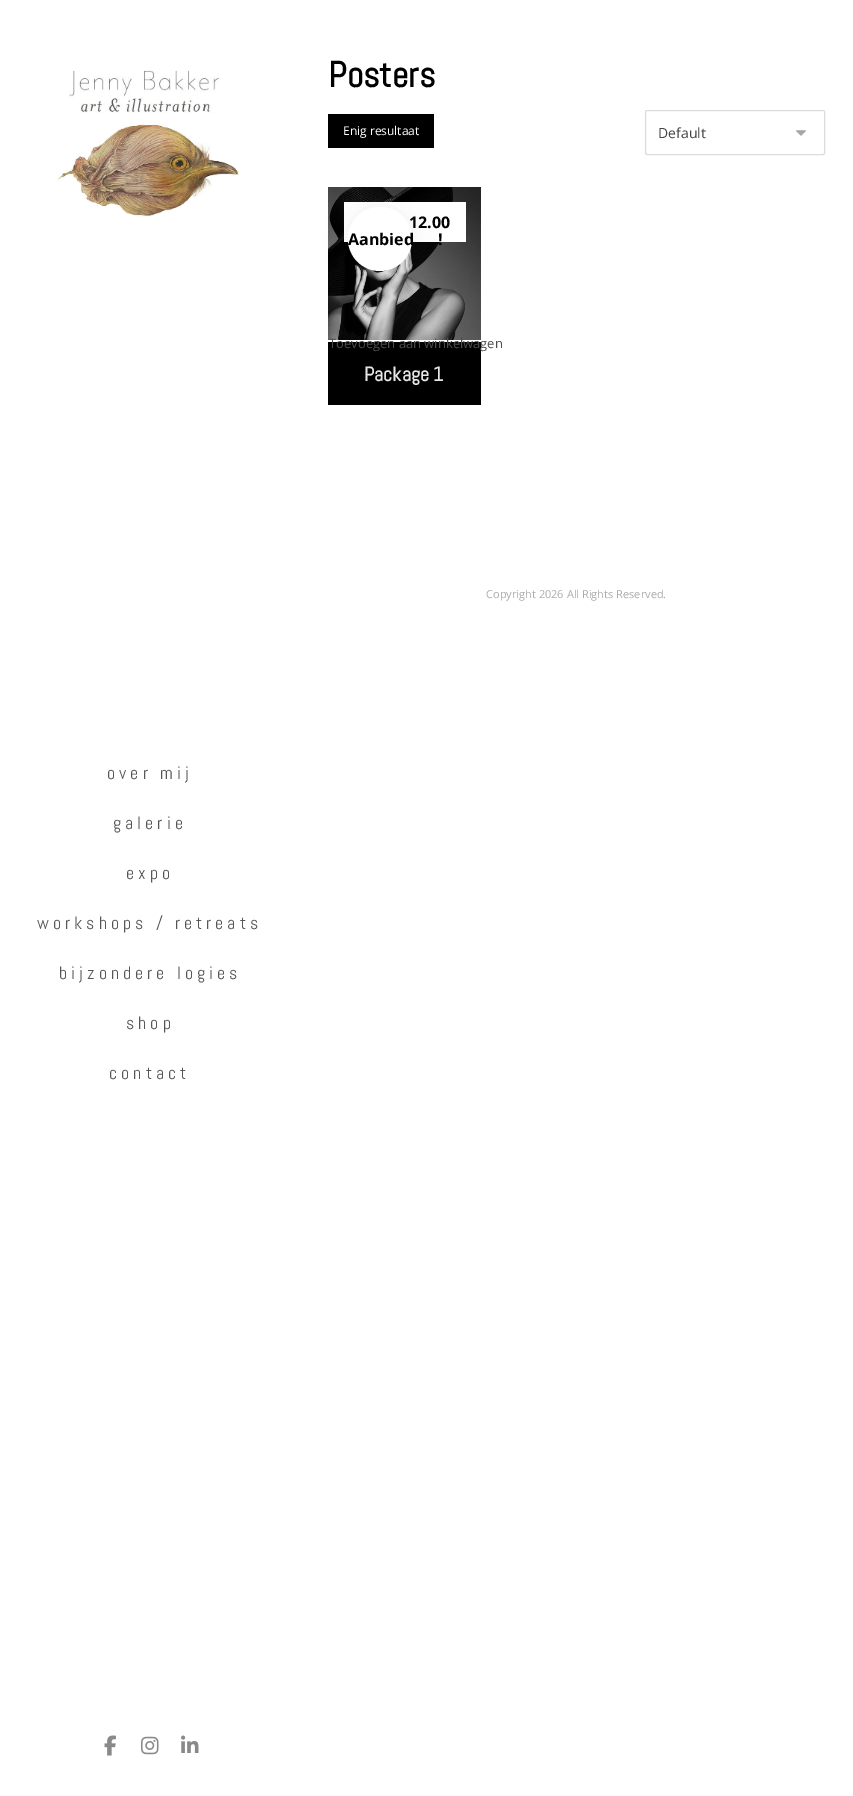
%!PS-Adobe-3.0
%%BoundingBox: 0 0 853 1796
%%LanguageLevel: 3
%%Pages: 1
%%EndComments
%%BeginProlog
/setink { dup -16 bitshift 255 div exch dup -8 bitshift 255 and 255 div exch 255 and 255 div setrgbcolor } def
/usefont { [ exch dup neg 0 0 3 -1 roll 0 0 ] selectfont } def
/setalpha { dup .setfillconstantalpha .setstrokeconstantalpha } def
/disc { newpath 0 360 arc closepath } def
/rrect { 5 dict begin { /r /h /w /y /x } { exch def } forall
  x r add y moveto x w add y 2 copy h add r arct x w add y h add x 1 index r arct
  x y h add x y r arct x y 2 copy exch w add exch r arct closepath end } def
/softshadow { 12 dict begin { /a /b /q /h /w /y /x } { exch def } forall gsave /was 0 def
  9 -2 -9 { dup b mul 4 div /e exch def 1 sub .425 mul 2.718 exch exp 1 add a .99 .min exch div /now exch def
    1 1 now sub 1 was sub div sub setalpha /was now def
    w h .min e 2 mul add 0 gt { x e sub y e sub w e 2 mul add h e 2 mul add
      q e add b .6 mul add w h .min 2 div e add .min 0 .max rrect fill } if } for grestore end } def
/drawimage { 5 dict begin { /h /w /y /x /name } { exch def } forall
  gsave x y translate w h scale
  w h 8 [w 0 0 h 0 0] name (r) file false 3 colorimage grestore end } def
%%EndProlog
%%BeginSetup
<< /PageSize [853 1796] /PageUsesTransparency true >> setpagedevice
%%EndSetup
%%Page: 1 1
0 .pushpdf14devicefilter
0 1796 translate 1 -1 scale
4 setmiterlimit
16#FFFFFF setink
0 0 853 1796 rectfill
/Abel-Bold 36 usefont
16#000000 setink
328 87 moveto (Posters) show
328 114 106 34 rectfill
/OpenSans-Regular 12 usefont
16#FFFFFF setink
343 135 moveto (Enig resultaat) show
(img1.raw) 796 130 10 6 drawimage
16#DCDCDC setink
645.5 110.5 179 44 1.5 rrect stroke
/OpenSans-Regular 14 usefont
16#444444 setink
658 138 moveto (Default) show
16#000000 setink
328 342 153 63 rectfill
(img2.raw) 328 187 153 153 drawimage
16#FFFFFF setink
344 202 122 40 rectfill
/OpenSans-Bold 16 usefont
16#000000 setink
409 228 moveto (12.00) show
16#111111 setink
348 207 64 64 32 15 0.06 softshadow
16#FFFFFF setink
380 239 32 disc fill
16#000000 setink
348 245 moveto (Aanbied) show
438 245 moveto (!) show
/Abel-Bold 20 usefont
16#E6E6E6 setink
364 381 moveto (Package 1) show
/OpenSans-Regular 13 usefont
16#4D4D4D setink
329 348 moveto (Toevoegen aan winkelwagen) show
/OpenSans-Regular 11 usefont
16#AAAAAA setink
486 598 moveto (Copyright 2026 All Rights Reserved.) show
(img3.raw) 58 70 181 147 drawimage
/Abel-Regular 18 usefont
16#565656 setink
107 779 moveto 4 0 (over mij) ashow
113 829 moveto 4 0 (galerie) ashow
126 879 moveto 4 0 (expo) ashow
37 929 moveto 4 0 (workshops / retreats) ashow
59 979 moveto 4 0 (bijzondere logies) ashow
126 1029 moveto 4 0 (shop) ashow
109 1079 moveto 4 0 (contact) ashow
(img4.raw) 104 1735 12 21 drawimage
(img5.raw) 141 1736 18 19 drawimage
(img6.raw) 181 1735 18 18 drawimage
.poppdf14devicefilter showpage
%%EOF
